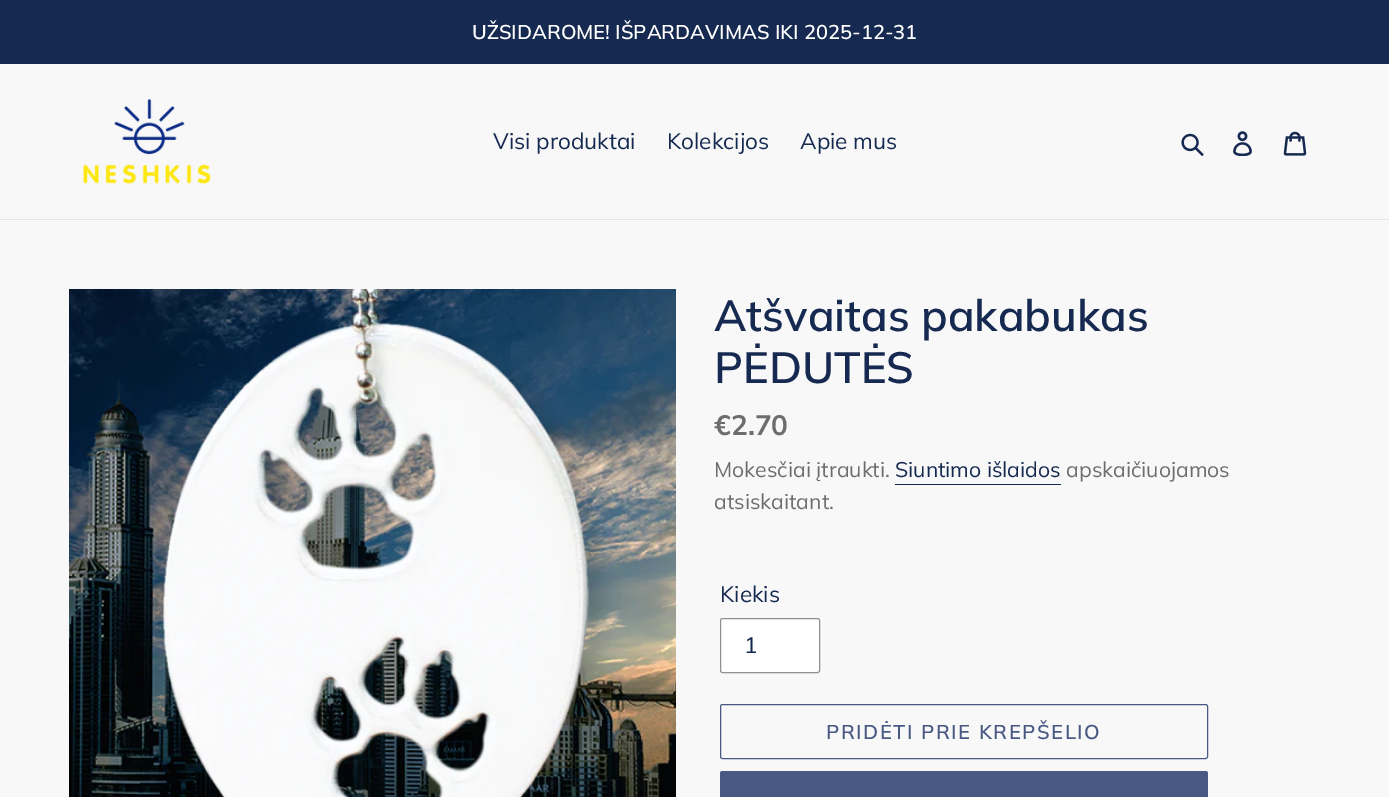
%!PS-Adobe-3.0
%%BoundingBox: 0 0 1389 797
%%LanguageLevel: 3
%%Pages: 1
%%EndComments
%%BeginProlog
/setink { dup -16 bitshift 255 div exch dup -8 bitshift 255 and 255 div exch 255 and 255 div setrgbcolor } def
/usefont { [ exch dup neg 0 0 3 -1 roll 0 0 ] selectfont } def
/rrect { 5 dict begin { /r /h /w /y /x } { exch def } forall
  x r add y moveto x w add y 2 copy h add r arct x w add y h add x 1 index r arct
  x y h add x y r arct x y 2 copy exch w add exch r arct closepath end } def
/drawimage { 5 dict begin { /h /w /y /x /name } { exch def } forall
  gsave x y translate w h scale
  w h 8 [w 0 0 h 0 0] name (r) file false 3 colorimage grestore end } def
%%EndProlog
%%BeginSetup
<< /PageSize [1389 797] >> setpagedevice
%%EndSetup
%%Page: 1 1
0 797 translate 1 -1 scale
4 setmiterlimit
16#F8F8F8 setink
0 0 1389 797 rectfill
16#162950 setink
0 0 1389 64 rectfill
/Muli-SemiBold 20 usefont
16#FFFFFF setink
472 39 moveto (UŽSIDAROME! IŠPARDAVIMAS IKI 2025-12-31) show
16#E4E4E4 setink
0 219 1389 1 rectfill
(img1.raw) 82 99 129 85 drawimage
/Muli-Regular 22.5 usefont
16#162950 setink
[
    [(Visi produktai) 493 149]
    [(Kolekcijos) 667 149]
    [(Apie mus) 800 149]
] { aload pop moveto show } forall
(img2.raw) 1181 133 23 23 drawimage
(img3.raw) 1233 131 19 25 drawimage
(img4.raw) 1283 131 24 25 drawimage
(img5.raw) 69 289 607 508 drawimage
/Muli-SemiBold 43.75 usefont
714 331 moveto (Atšvaitas pakabukas) show
714 383 moveto (PĖDUTĖS) show
/Muli-Bold 28 usefont
16#6D6D6D setink
714 435 moveto (€2.70) show
/Muli-Regular 21.25 usefont
714 477 moveto (Mokesčiai įtraukti.) show
16#162950 setink
895 477 moveto (Siuntimo išlaidos) show
895 484 166 1 rectfill
16#6D6D6D setink
1066 477 moveto (apskaičiuojamos) show
714 509 moveto (atsiskaitant.) show
/Muli-Regular 22.5 usefont
16#162950 setink
720 602 moveto (Kiekis) show
16#FFFFFF setink
720.5 618.5 99 54 2 rrect gsave fill grestore
16#909090 setink
stroke
16#162950 setink
744 653 moveto (1) show
16#495984 setink
720.5 704.5 487 54 2 rrect stroke
/Muli-SemiBold 20 usefont
826 739 moveto 1.6 0 (PRIDĖTI PRIE KREPŠELIO) ashow
720 771 488 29 2.5 rrect fill
showpage
%%EOF
